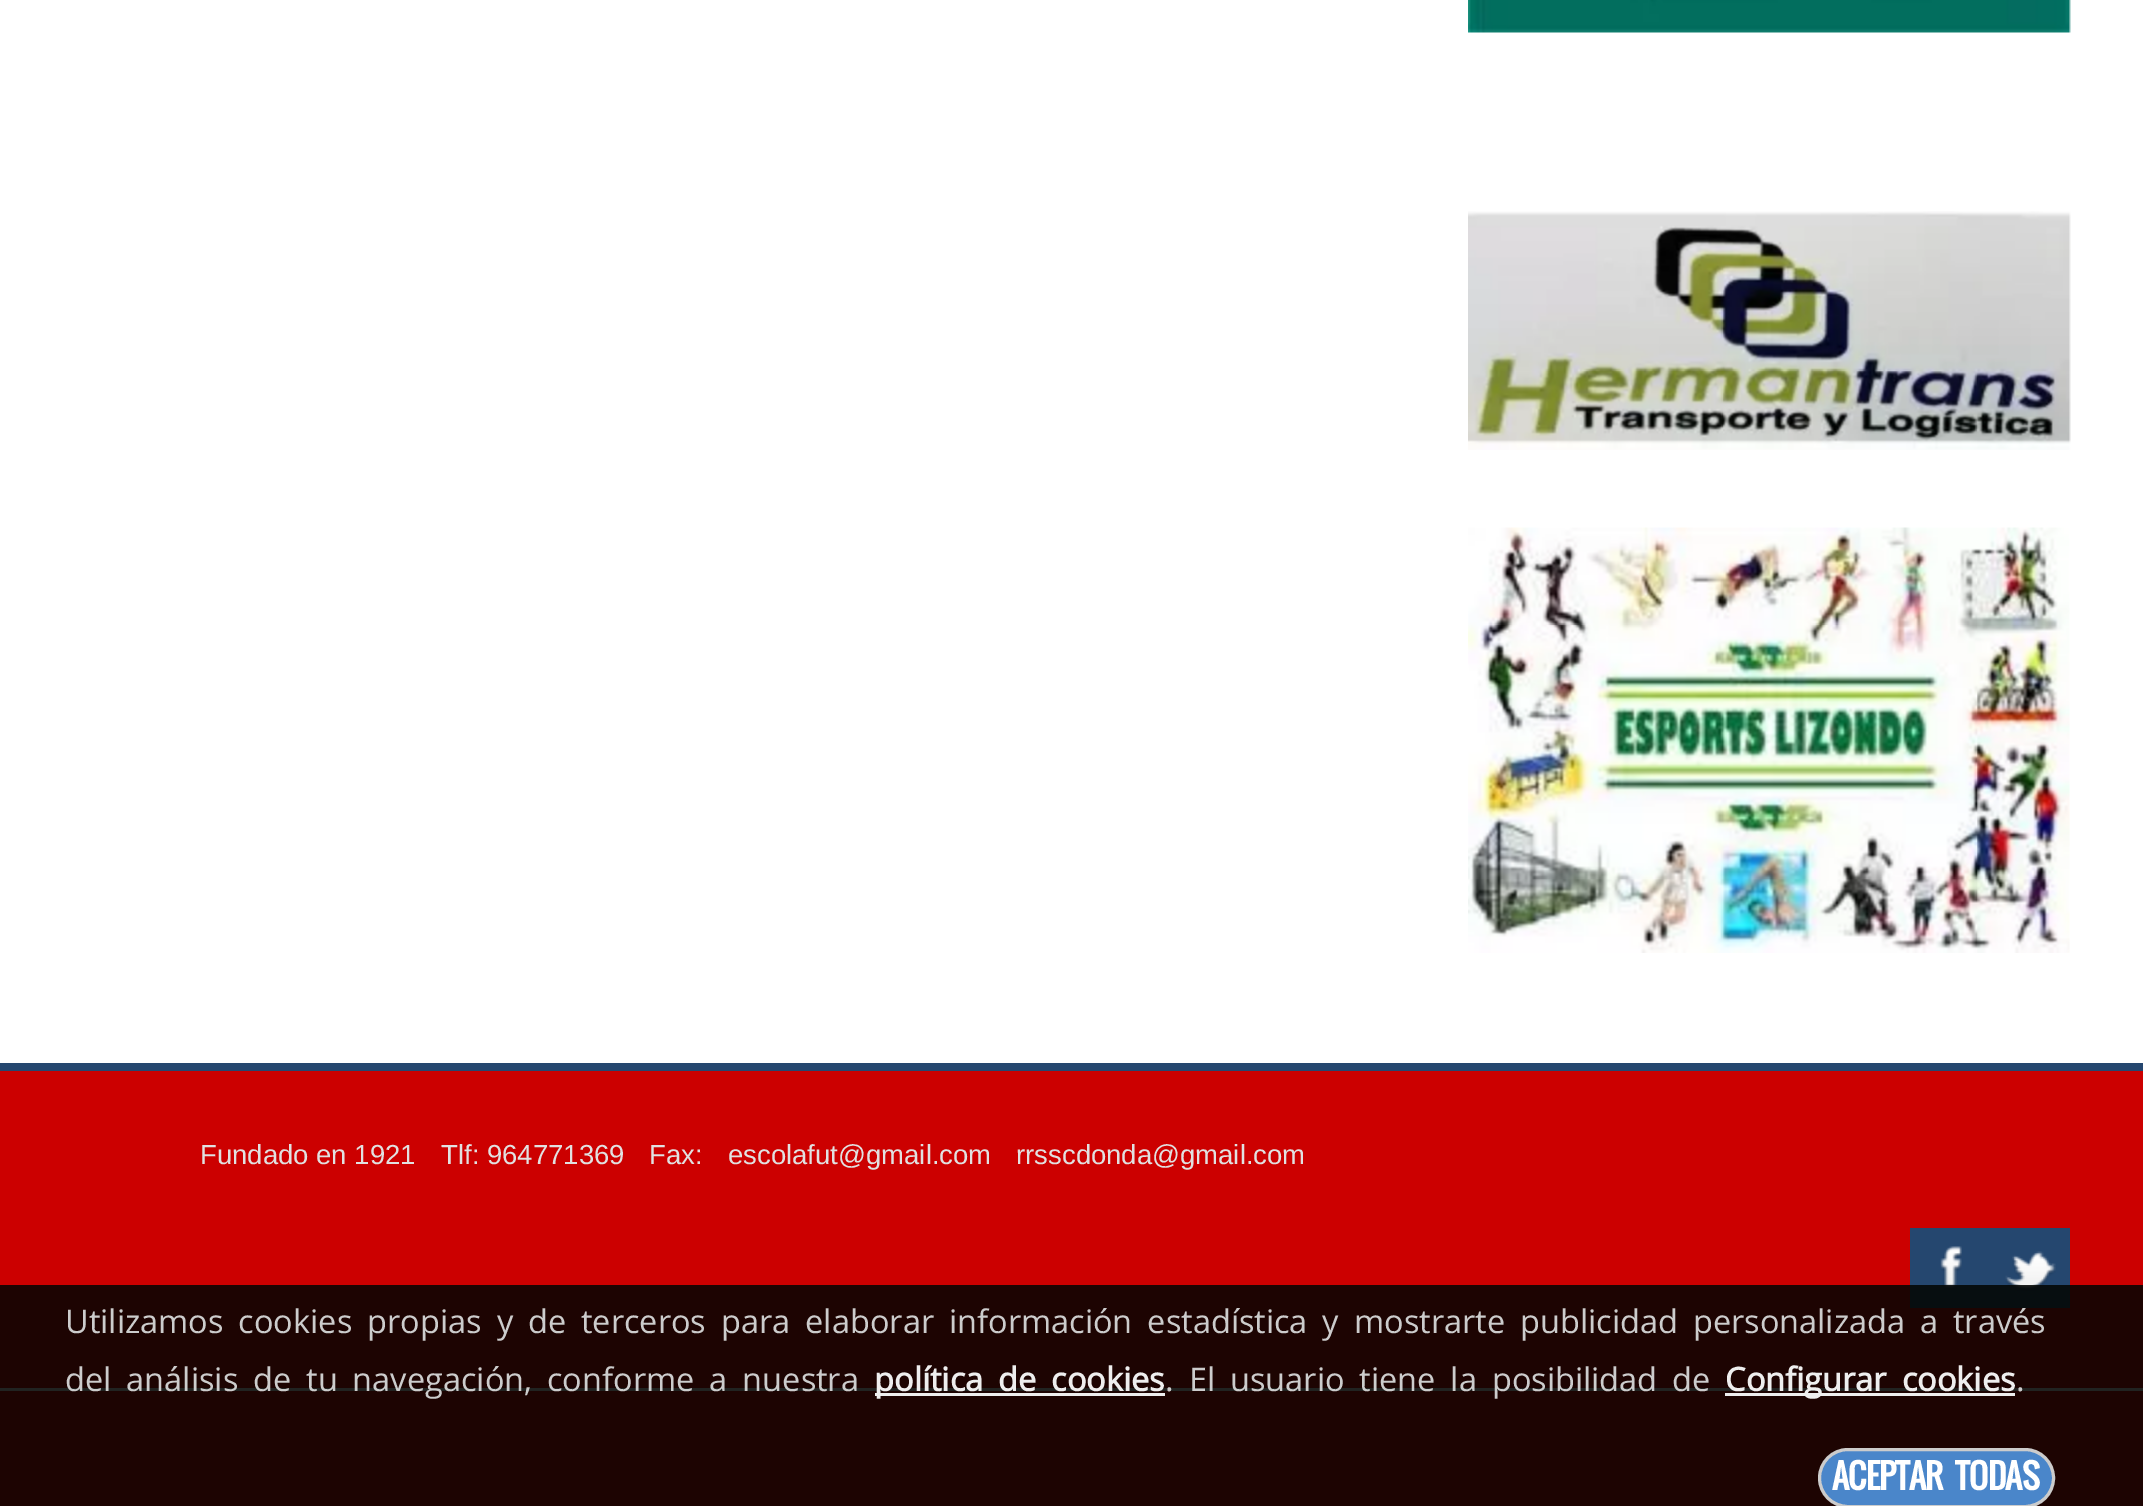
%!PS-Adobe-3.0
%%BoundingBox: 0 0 2143 1506
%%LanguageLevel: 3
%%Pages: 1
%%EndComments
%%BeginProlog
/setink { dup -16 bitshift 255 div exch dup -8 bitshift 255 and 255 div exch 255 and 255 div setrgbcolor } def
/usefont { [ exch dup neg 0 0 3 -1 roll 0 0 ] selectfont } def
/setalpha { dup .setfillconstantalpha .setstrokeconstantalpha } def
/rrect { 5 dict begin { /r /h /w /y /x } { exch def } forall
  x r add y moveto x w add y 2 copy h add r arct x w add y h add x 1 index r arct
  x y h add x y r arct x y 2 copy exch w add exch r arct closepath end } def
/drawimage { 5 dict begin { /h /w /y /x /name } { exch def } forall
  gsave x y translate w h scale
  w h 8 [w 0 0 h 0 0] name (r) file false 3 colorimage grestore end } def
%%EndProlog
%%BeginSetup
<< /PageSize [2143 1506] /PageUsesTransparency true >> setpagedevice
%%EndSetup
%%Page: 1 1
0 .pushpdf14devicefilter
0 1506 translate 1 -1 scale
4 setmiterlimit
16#FFFFFF setink
0 0 2143 1506 rectfill
(img1.raw) 1468 0 603 33 drawimage
(img2.raw) 1468 211 603 239 drawimage
(img3.raw) 1468 527 602 426 drawimage
16#CC0000 setink
0 1071 2143 435 rectfill
16#25476F setink
0 1063 2143 8 rectfill
/LiberationSans-Regular 27.5 usefont
16#E1E1E1 setink
[
    [(Fundado en 1921) 200 1164]
    [(Tlf: 964771369) 441 1164]
    [(Fax:) 649 1164]
    [(escolafut@gmail.com) 728 1164]
    [(rrsscdonda@gmail.com) 1016 1164]
] { aload pop moveto show } forall
16#25476F setink
1910 1228 160 80 rectfill
(img4.raw) 1940 1246 22 44 drawimage
(img5.raw) 2005 1251 51 40 drawimage
16#EEEEEE setink
0 1388 2143 3 rectfill
0.87 setalpha
16#030502 setink
0 1285 2143 221 rectfill
/OpenSans-Regular 32.5 usefont
1 setalpha
16#CCCCCC setink
65 1333 moveto 6.5 0 32 (Utilizamos cookies propias y de terceros para elaborar información estadística y mostrarte publicidad personalizada a través) widthshow
65 1391 moveto 6.5 0 32 (del análisis de tu navegación, conforme a nuestra) widthshow
16#EEEEEE setink
875 1393 290 3 rectfill
/OpenSans-Bold 32.5 usefont
874 1391 moveto 6.5 0 32 (política de cookies) widthshow
/OpenSans-Regular 32.5 usefont
16#CCCCCC setink
1165 1391 moveto 6.5 0 32 (. El usuario tiene la posibilidad de) widthshow
16#EEEEEE setink
1725 1393 290 3 rectfill
/OpenSans-Bold 32.5 usefont
1725 1391 moveto 6.5 0 32 (Configurar cookies) widthshow
/OpenSans-Regular 32.5 usefont
16#CCCCCC setink
2016 1391 moveto (.) show
16#4A86CA setink
1819.5 1449.5 234 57 28.5 rrect gsave fill grestore
16#CCCCCC setink
3 setlinewidth
stroke
/Oswald-Bold 33.25 usefont
16#FFFFFF setink
1832 1490 moveto 6.5 0 32 -0.7 0 (ACEPTAR TODAS) awidthshow
.poppdf14devicefilter showpage
%%EOF
